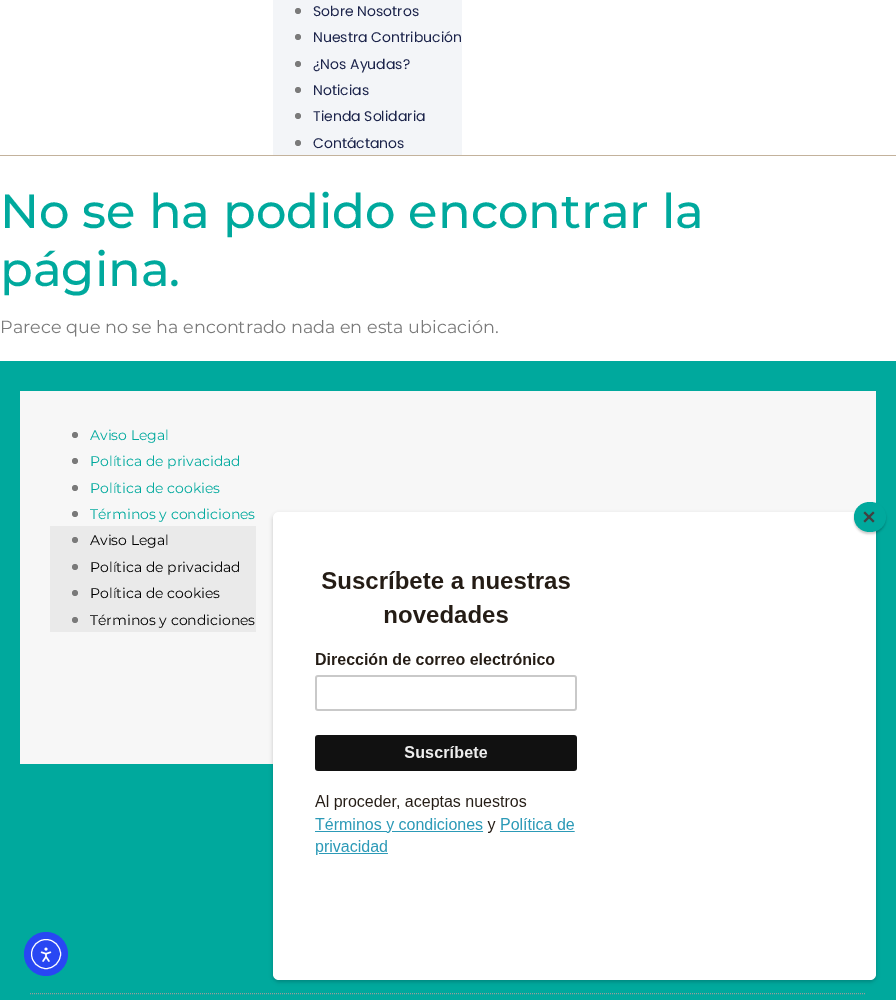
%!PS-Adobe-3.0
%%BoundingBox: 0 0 896 1000
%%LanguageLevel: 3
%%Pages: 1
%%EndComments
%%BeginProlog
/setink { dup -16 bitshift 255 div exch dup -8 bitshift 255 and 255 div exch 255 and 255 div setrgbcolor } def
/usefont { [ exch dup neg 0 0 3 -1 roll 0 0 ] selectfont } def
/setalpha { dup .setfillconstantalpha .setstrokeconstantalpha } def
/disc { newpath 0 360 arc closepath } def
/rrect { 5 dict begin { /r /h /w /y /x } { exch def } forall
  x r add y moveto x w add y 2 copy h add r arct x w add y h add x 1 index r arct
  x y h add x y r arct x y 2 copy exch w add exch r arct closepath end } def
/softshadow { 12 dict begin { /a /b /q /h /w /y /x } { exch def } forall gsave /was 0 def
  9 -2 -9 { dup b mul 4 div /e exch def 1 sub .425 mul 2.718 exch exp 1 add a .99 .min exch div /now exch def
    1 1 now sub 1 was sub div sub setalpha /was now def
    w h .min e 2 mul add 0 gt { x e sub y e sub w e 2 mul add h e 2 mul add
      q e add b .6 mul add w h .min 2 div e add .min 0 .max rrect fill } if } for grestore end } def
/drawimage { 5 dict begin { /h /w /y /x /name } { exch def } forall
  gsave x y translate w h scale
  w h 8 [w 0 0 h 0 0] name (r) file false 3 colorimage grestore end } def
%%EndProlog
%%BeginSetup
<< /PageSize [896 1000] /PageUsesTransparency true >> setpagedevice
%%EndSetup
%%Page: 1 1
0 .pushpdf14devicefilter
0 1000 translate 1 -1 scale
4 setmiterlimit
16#FFFFFF setink
0 0 896 1000 rectfill
16#C3B29C setink
0 155 896 1 rectfill
16#F3F5F8 setink
273 0 189 155 rectfill
16#7A7A7A setink
298 11 3 disc fill
/Poppins-Regular 14 usefont
16#1C244B setink
313 16 moveto (Sobre Nosotros) show
16#7A7A7A setink
298 37 3 disc fill
16#1C244B setink
313 42 moveto (Nuestra Contribución) show
16#7A7A7A setink
298 64 3 disc fill
16#1C244B setink
313 69 moveto (¿Nos Ayudas?) show
16#7A7A7A setink
298 90 3 disc fill
16#1C244B setink
313 95 moveto (Noticias) show
16#7A7A7A setink
298 116 3 disc fill
16#1C244B setink
313 121 moveto (Tienda Solidaria) show
16#7A7A7A setink
298 143 3 disc fill
16#1C244B setink
313 148 moveto (Contáctanos) show
/Montserrat-Medium 48 usefont
16#00A99D setink
0 228 moveto (No se ha podido encontrar la) show
0 286 moveto (página.) show
/Montserrat-Regular 17.6 usefont
16#7A7A7A setink
0 333 moveto (Parece que no se ha encontrado nada en esta ubicación.) show
16#00A99D setink
0 361 896 639 rectfill
16#2847F3 setink
46 954 22 disc fill
16#FFFFFF setink
46 954 14.5 disc stroke
(img1.raw) 40 947 12 15 drawimage
16#F7F7F7 setink
20 391 856 373 rectfill
16#7A7A7A setink
75 435 3 disc fill
/Montserrat-Regular 14 usefont
16#00A99D setink
90 440 moveto (Aviso Legal) show
16#7A7A7A setink
75 461 3 disc fill
16#00A99D setink
90 466 moveto (Política de privacidad) show
16#7A7A7A setink
75 488 3 disc fill
16#00A99D setink
90 493 moveto (Política de cookies) show
16#7A7A7A setink
75 514 3 disc fill
16#00A99D setink
90 519 moveto (Términos y condiciones) show
16#EAEAEA setink
50 526 206 106 rectfill
16#7A7A7A setink
75 540 3 disc fill
16#000000 setink
90 545 moveto (Aviso Legal) show
16#7A7A7A setink
75 567 3 disc fill
16#000000 setink
90 572 moveto (Política de privacidad) show
16#7A7A7A setink
75 593 3 disc fill
16#000000 setink
90 598 moveto (Política de cookies) show
16#7A7A7A setink
75 620 3 disc fill
16#000000 setink
90 625 moveto (Términos y condiciones) show
16#9B9B9B setink
[1 1] 0 setdash
30 993.5 moveto 866 993.5 lineto stroke
16#000000 setink
273 514 603 468 6 2 0.2 softshadow
16#FFFFFF setink
273 512 603 468 6 rrect fill
16#000000 setink
854 504 32 30 15 1 0.2 softshadow
16#00A99D setink
870 502 moveto 879 502 886 508.5 886 517 curveto 886 525.5 879 532 870 532 curveto 861 532 854 525.5 854 517 curveto 854 508.5 861 502 870 502 curveto closepath fill
16#414141 setink
873 511.5 moveto 874.5 513 lineto 865 522.5 lineto 863.5 521 lineto closepath fill
863.5 513 moveto 865 511.5 lineto 874.5 521 lineto 873 522.5 lineto closepath fill
(img2.raw) 315 571 262 284 drawimage
.poppdf14devicefilter showpage
%%EOF
